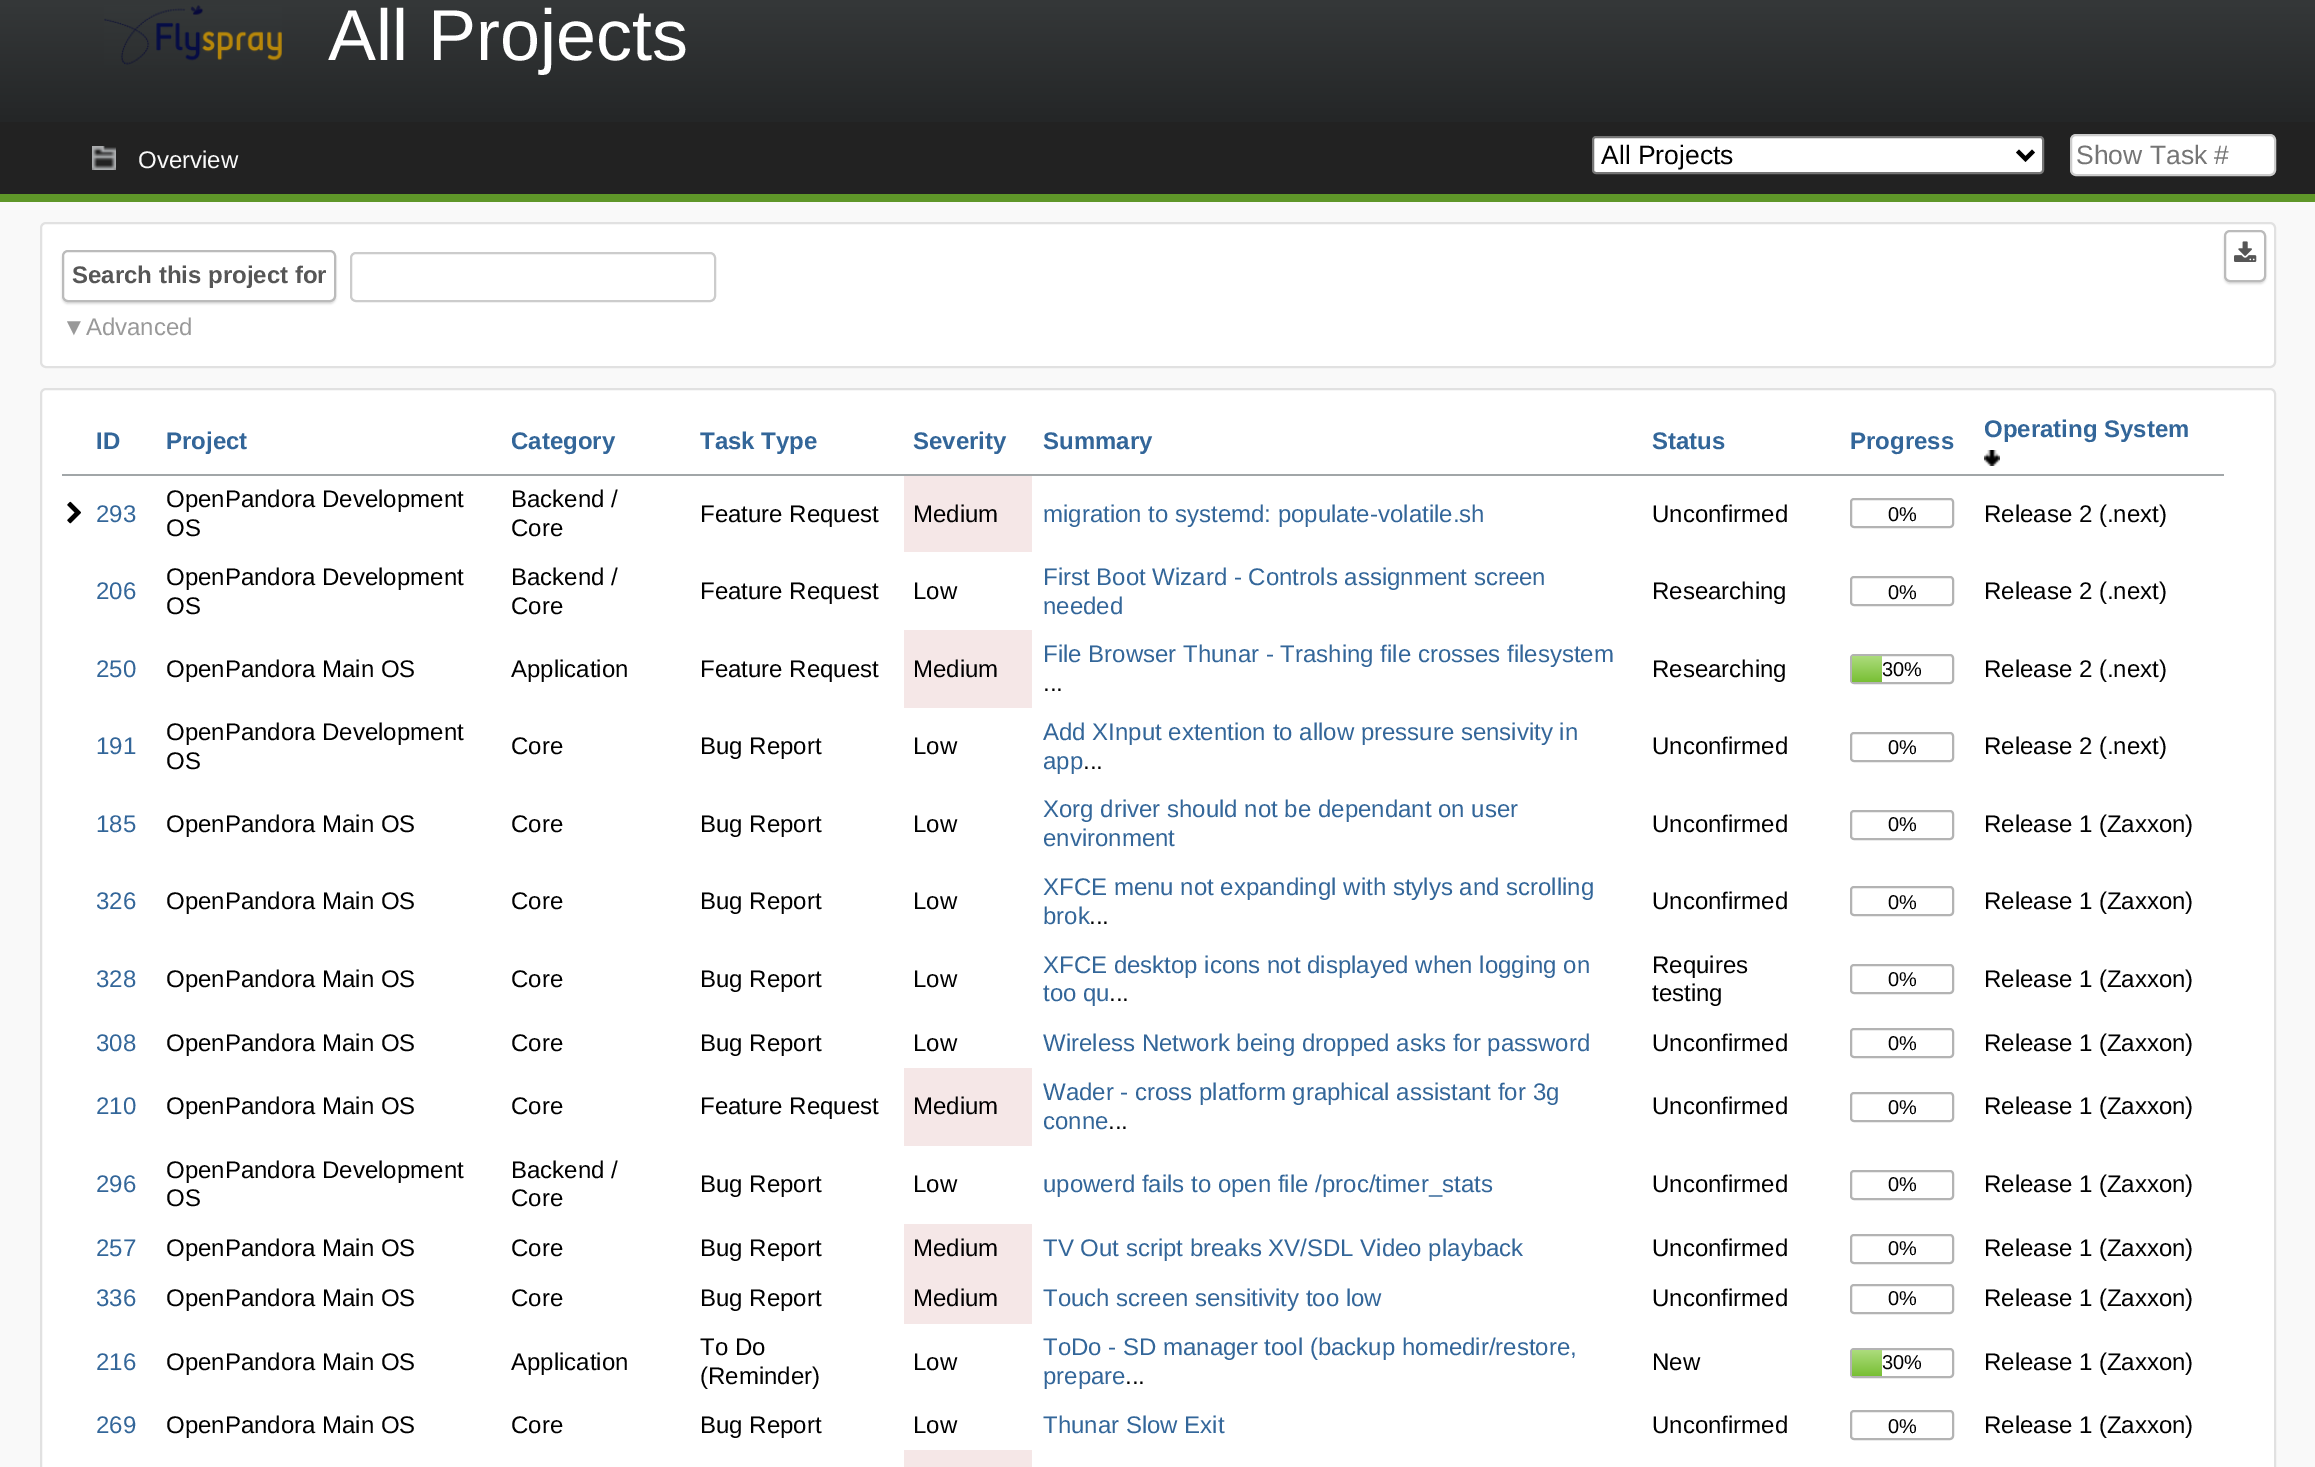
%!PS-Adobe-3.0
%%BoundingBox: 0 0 2315 1467
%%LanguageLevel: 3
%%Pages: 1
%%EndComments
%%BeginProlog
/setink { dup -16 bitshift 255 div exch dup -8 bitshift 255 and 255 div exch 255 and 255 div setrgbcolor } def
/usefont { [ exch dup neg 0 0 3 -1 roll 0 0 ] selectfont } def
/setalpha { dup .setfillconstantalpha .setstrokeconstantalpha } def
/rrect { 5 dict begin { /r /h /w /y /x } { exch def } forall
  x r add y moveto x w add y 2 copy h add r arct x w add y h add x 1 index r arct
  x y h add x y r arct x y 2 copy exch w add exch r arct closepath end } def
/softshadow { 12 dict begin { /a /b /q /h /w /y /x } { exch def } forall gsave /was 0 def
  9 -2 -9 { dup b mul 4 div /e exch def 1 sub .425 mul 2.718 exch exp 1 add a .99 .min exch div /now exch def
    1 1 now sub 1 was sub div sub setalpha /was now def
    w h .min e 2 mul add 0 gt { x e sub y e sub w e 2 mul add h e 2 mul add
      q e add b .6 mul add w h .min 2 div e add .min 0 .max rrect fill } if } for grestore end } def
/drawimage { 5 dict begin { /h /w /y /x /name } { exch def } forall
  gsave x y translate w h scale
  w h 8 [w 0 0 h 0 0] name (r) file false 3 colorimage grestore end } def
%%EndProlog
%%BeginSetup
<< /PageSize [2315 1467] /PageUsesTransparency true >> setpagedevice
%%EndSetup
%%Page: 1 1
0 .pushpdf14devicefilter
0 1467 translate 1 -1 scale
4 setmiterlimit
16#F9F9F9 setink
0 0 2315 1467 rectfill
gsave 0 0 moveto 2315 0 lineto 2315 122 lineto 0 122 lineto closepath clip newpath
<< /ShadingType 2 /ColorSpace /DeviceRGB /Coords [1158 -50 1158 122] /Extend [true true] /Function << /FunctionType 2 /Domain [0 1] /C0 [0.235 0.251 0.255] /C1 [0.141 0.149 0.153] /N 1 >> >> shfill grestore
(img1.raw) 104 5 178 60 drawimage
/LiberationSans-Regular 72 usefont
16#FFFFFF setink
328 60 moveto (All Projects) show
16#222222 setink
0 122 2315 72 rectfill
16#5F9729 setink
0 194 2315 8 rectfill
(img2.raw) 92 146 24 24 drawimage
/LiberationSans-Regular 24 usefont
16#F9F9F9 setink
138 168 moveto (Overview) show
16#FFFFFF setink
1593 137 450 36 3 rrect gsave fill grestore
16#767676 setink
2 setlinewidth
stroke
16#000000 setink
4 setlinewidth
2017.5 151 moveto 2025.5 159 lineto 2033.5 151 lineto stroke
/LiberationSans-Regular 26.5 usefont
1601 164 moveto (All Projects) show
16#FFFFFF setink
2071 135 204 40 5 rrect gsave fill grestore
16#CCCCCC setink
2 setlinewidth
stroke
16#757575 setink
2076 164 moveto (Show Task #) show
16#FFFFFF setink
41 223 2234 144 5 rrect gsave fill grestore
16#E1E1E1 setink
stroke
16#DDDDDD setink
62 252 274 52 6 1 1 softshadow
16#FFFFFF setink
63 251 272 50 5 rrect gsave fill grestore
16#BBBBBB setink
stroke
/LiberationSans-Bold 24 usefont
16#565656 setink
72 283 moveto (Search this project for) show
16#CCCCCC setink
351 253 364 48 5 rrect stroke
16#DDDDDD setink
2224 232 42 52 6 1 1 softshadow
16#FFFFFF setink
2225 231 40 50 5 rrect gsave fill grestore
16#BBBBBB setink
stroke
(img3.raw) 2234 241 23 21 drawimage
/LiberationSans-Regular 24 usefont
16#999999 setink
62 335 moveto (▼Advanced) show
16#FFFFFF setink
41 389 2234 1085 5 rrect gsave fill grestore
16#E1E1E1 setink
stroke
/LiberationSans-Bold 24 usefont
16#336699 setink
[
    [(ID) 96 449]
    [(Project) 166 449]
    [(Category) 511 449]
    [(Task Type) 700 449]
    [(Severity) 913 449]
    [(Summary) 1043 449]
    [(Status) 1652 449]
    [(Progress) 1850 449]
    [(Operating System) 1984 437]
] { aload pop moveto show } forall
(img4.raw) 1984 450 16 16 drawimage
16#A1A6A8 setink
62 474 2162 2 rectfill
(img5.raw) 67 501 14 23 drawimage
/LiberationSans-Regular 24 usefont
16#336699 setink
96 522 moveto (293) show
16#000000 setink
[
    [(OpenPandora Development) 166 507]
    [(OS) 166 536]
    [(Backend /) 511 507]
    [(Core) 511 536]
    [(Feature Request) 700 522]
] { aload pop moveto show } forall
16#F5E7E7 setink
904 476 128 76 rectfill
16#000000 setink
913 522 moveto (Medium) show
16#336699 setink
1043 522 moveto (migration to systemd: populate-volatile.sh) show
16#000000 setink
1652 522 moveto (Unconfirmed) show
16#B3B3B3 setink
1851 499 102 28 3 rrect stroke
/LiberationSans-Regular 20 usefont
16#000000 setink
1888 521 moveto (0%) show
/LiberationSans-Regular 24 usefont
1984 522 moveto (Release 2 \(.next\)) show
16#336699 setink
96 599 moveto (206) show
16#000000 setink
[
    [(OpenPandora Development) 166 585]
    [(OS) 166 614]
    [(Backend /) 511 585]
    [(Core) 511 614]
    [(Feature Request) 700 599]
    [(Low) 913 599]
] { aload pop moveto show } forall
16#336699 setink
1043 585 moveto (First Boot Wizard - Controls assignment screen) show
1043 614 moveto (needed) show
16#000000 setink
1652 599 moveto (Researching) show
16#B3B3B3 setink
1851 577 102 28 3 rrect stroke
/LiberationSans-Regular 20 usefont
16#000000 setink
1888 599 moveto (0%) show
/LiberationSans-Regular 24 usefont
1984 599 moveto (Release 2 \(.next\)) show
16#336699 setink
96 677 moveto (250) show
16#000000 setink
[
    [(OpenPandora Main OS) 166 677]
    [(Application) 511 677]
    [(Feature Request) 700 677]
] { aload pop moveto show } forall
16#F5E7E7 setink
904 630 128 78 rectfill
16#000000 setink
913 677 moveto (Medium) show
16#336699 setink
1043 662 moveto (File Browser Thunar - Trashing file crosses filesystem) show
16#000000 setink
1043 691 moveto (...) show
1652 677 moveto (Researching) show
16#B3B3B3 setink
1851 655 102 28 3 rrect stroke
gsave 1852 656 moveto 1882 656 lineto 1882 682 lineto 1852 682 lineto closepath clip newpath
<< /ShadingType 2 /ColorSpace /DeviceRGB /Coords [1867 656 1867 682] /Extend [true true] /Function << /FunctionType 2 /Domain [0 1] /C0 [0.675 0.863 0.49] /C1 [0.471 0.749 0.204] /N 1 >> >> shfill grestore
/LiberationSans-Regular 20 usefont
16#000000 setink
1882 676 moveto (30%) show
/LiberationSans-Regular 24 usefont
1984 677 moveto (Release 2 \(.next\)) show
16#336699 setink
96 754 moveto (191) show
16#000000 setink
[
    [(OpenPandora Development) 166 740]
    [(OS) 166 769]
    [(Core) 511 754]
    [(Bug Report) 700 754]
    [(Low) 913 754]
] { aload pop moveto show } forall
16#336699 setink
1043 740 moveto (Add XInput extention to allow pressure sensivity in) show
1043 769 moveto (app) show
16#000000 setink
1083 769 moveto (...) show
1652 754 moveto (Unconfirmed) show
16#B3B3B3 setink
1851 733 102 28 3 rrect stroke
/LiberationSans-Regular 20 usefont
16#000000 setink
1888 754 moveto (0%) show
/LiberationSans-Regular 24 usefont
1984 754 moveto (Release 2 \(.next\)) show
16#336699 setink
96 832 moveto (185) show
16#000000 setink
[
    [(OpenPandora Main OS) 166 832]
    [(Core) 511 832]
    [(Bug Report) 700 832]
    [(Low) 913 832]
] { aload pop moveto show } forall
16#336699 setink
1043 817 moveto (Xorg driver should not be dependant on user) show
1043 846 moveto (environment) show
16#000000 setink
1652 832 moveto (Unconfirmed) show
16#B3B3B3 setink
1851 811 102 28 3 rrect stroke
/LiberationSans-Regular 20 usefont
16#000000 setink
1888 831 moveto (0%) show
/LiberationSans-Regular 24 usefont
1984 832 moveto (Release 1 \(Zaxxon\)) show
16#336699 setink
96 909 moveto (326) show
16#000000 setink
[
    [(OpenPandora Main OS) 166 909]
    [(Core) 511 909]
    [(Bug Report) 700 909]
    [(Low) 913 909]
] { aload pop moveto show } forall
16#336699 setink
1043 895 moveto (XFCE menu not expandingl with stylys and scrolling) show
1043 924 moveto (brok) show
16#000000 setink
1089 924 moveto (...) show
1652 909 moveto (Unconfirmed) show
16#B3B3B3 setink
1851 887 102 28 3 rrect stroke
/LiberationSans-Regular 20 usefont
16#000000 setink
1888 909 moveto (0%) show
/LiberationSans-Regular 24 usefont
1984 909 moveto (Release 1 \(Zaxxon\)) show
16#336699 setink
96 987 moveto (328) show
16#000000 setink
[
    [(OpenPandora Main OS) 166 987]
    [(Core) 511 987]
    [(Bug Report) 700 987]
    [(Low) 913 987]
] { aload pop moveto show } forall
16#336699 setink
1043 973 moveto (XFCE desktop icons not displayed when logging on) show
1043 1001 moveto (too qu) show
16#000000 setink
[
    [(...) 1109 1001]
    [(Requires) 1652 973]
    [(testing) 1652 1001]
] { aload pop moveto show } forall
16#B3B3B3 setink
1851 965 102 28 3 rrect stroke
/LiberationSans-Regular 20 usefont
16#000000 setink
1888 986 moveto (0%) show
/LiberationSans-Regular 24 usefont
1984 987 moveto (Release 1 \(Zaxxon\)) show
16#336699 setink
96 1051 moveto (308) show
16#000000 setink
[
    [(OpenPandora Main OS) 166 1051]
    [(Core) 511 1051]
    [(Bug Report) 700 1051]
    [(Low) 913 1051]
] { aload pop moveto show } forall
16#336699 setink
1043 1051 moveto (Wireless Network being dropped asks for password) show
16#000000 setink
1652 1051 moveto (Unconfirmed) show
16#B3B3B3 setink
1851 1029 102 28 3 rrect stroke
/LiberationSans-Regular 20 usefont
16#000000 setink
1888 1050 moveto (0%) show
/LiberationSans-Regular 24 usefont
1984 1051 moveto (Release 1 \(Zaxxon\)) show
16#336699 setink
96 1114 moveto (210) show
16#000000 setink
[
    [(OpenPandora Main OS) 166 1114]
    [(Core) 511 1114]
    [(Feature Request) 700 1114]
] { aload pop moveto show } forall
16#F5E7E7 setink
904 1068 128 78 rectfill
16#000000 setink
913 1114 moveto (Medium) show
16#336699 setink
1043 1100 moveto (Wader - cross platform graphical assistant for 3g) show
1043 1129 moveto (conne) show
16#000000 setink
1108 1129 moveto (...) show
1652 1114 moveto (Unconfirmed) show
16#B3B3B3 setink
1851 1093 102 28 3 rrect stroke
/LiberationSans-Regular 20 usefont
16#000000 setink
1888 1114 moveto (0%) show
/LiberationSans-Regular 24 usefont
1984 1114 moveto (Release 1 \(Zaxxon\)) show
16#336699 setink
96 1192 moveto (296) show
16#000000 setink
[
    [(OpenPandora Development) 166 1178]
    [(OS) 166 1206]
    [(Backend /) 511 1178]
    [(Core) 511 1206]
    [(Bug Report) 700 1192]
    [(Low) 913 1192]
] { aload pop moveto show } forall
16#336699 setink
1043 1192 moveto (upowerd fails to open file /proc/timer_stats) show
16#000000 setink
1652 1192 moveto (Unconfirmed) show
16#B3B3B3 setink
1851 1171 102 28 3 rrect stroke
/LiberationSans-Regular 20 usefont
16#000000 setink
1888 1191 moveto (0%) show
/LiberationSans-Regular 24 usefont
1984 1192 moveto (Release 1 \(Zaxxon\)) show
16#336699 setink
96 1256 moveto (257) show
16#000000 setink
[
    [(OpenPandora Main OS) 166 1256]
    [(Core) 511 1256]
    [(Bug Report) 700 1256]
] { aload pop moveto show } forall
16#F5E7E7 setink
904 1224 128 100 rectfill
16#000000 setink
913 1256 moveto (Medium) show
16#336699 setink
1043 1256 moveto (TV Out script breaks XV/SDL Video playback) show
16#000000 setink
1652 1256 moveto (Unconfirmed) show
16#B3B3B3 setink
1851 1235 102 28 3 rrect stroke
/LiberationSans-Regular 20 usefont
16#000000 setink
1888 1255 moveto (0%) show
/LiberationSans-Regular 24 usefont
1984 1256 moveto (Release 1 \(Zaxxon\)) show
16#336699 setink
96 1306 moveto (336) show
16#000000 setink
[
    [(OpenPandora Main OS) 166 1306]
    [(Core) 511 1306]
    [(Bug Report) 700 1306]
    [(Medium) 913 1306]
] { aload pop moveto show } forall
16#336699 setink
1043 1306 moveto (Touch screen sensitivity too low) show
16#000000 setink
1652 1306 moveto (Unconfirmed) show
16#B3B3B3 setink
1851 1285 102 28 3 rrect stroke
/LiberationSans-Regular 20 usefont
16#000000 setink
1888 1305 moveto (0%) show
/LiberationSans-Regular 24 usefont
1984 1306 moveto (Release 1 \(Zaxxon\)) show
16#336699 setink
96 1370 moveto (216) show
16#000000 setink
[
    [(OpenPandora Main OS) 166 1370]
    [(Application) 511 1370]
    [(To Do) 700 1355]
    [(\(Reminder\)) 700 1384]
    [(Low) 913 1370]
] { aload pop moveto show } forall
16#336699 setink
1043 1355 moveto (ToDo - SD manager tool \(backup homedir/restore,) show
1043 1384 moveto (prepare) show
16#000000 setink
1125 1384 moveto (...) show
1652 1370 moveto (New) show
16#B3B3B3 setink
1851 1349 102 28 3 rrect stroke
gsave 1852 1350 moveto 1882 1350 lineto 1882 1376 lineto 1852 1376 lineto closepath clip newpath
<< /ShadingType 2 /ColorSpace /DeviceRGB /Coords [1867 1350 1867 1376] /Extend [true true] /Function << /FunctionType 2 /Domain [0 1] /C0 [0.675 0.863 0.49] /C1 [0.471 0.749 0.204] /N 1 >> >> shfill grestore
/LiberationSans-Regular 20 usefont
16#000000 setink
1882 1369 moveto (30%) show
/LiberationSans-Regular 24 usefont
1984 1370 moveto (Release 1 \(Zaxxon\)) show
16#336699 setink
96 1433 moveto (269) show
16#000000 setink
[
    [(OpenPandora Main OS) 166 1433]
    [(Core) 511 1433]
    [(Bug Report) 700 1433]
    [(Low) 913 1433]
] { aload pop moveto show } forall
16#336699 setink
1043 1433 moveto (Thunar Slow Exit) show
16#000000 setink
1652 1433 moveto (Unconfirmed) show
16#B3B3B3 setink
1851 1411 102 28 3 rrect stroke
/LiberationSans-Regular 20 usefont
16#000000 setink
1888 1433 moveto (0%) show
/LiberationSans-Regular 24 usefont
1984 1433 moveto (Release 1 \(Zaxxon\)) show
16#F5E7E7 setink
904 1450 128 17 rectfill
.poppdf14devicefilter showpage
%%EOF
